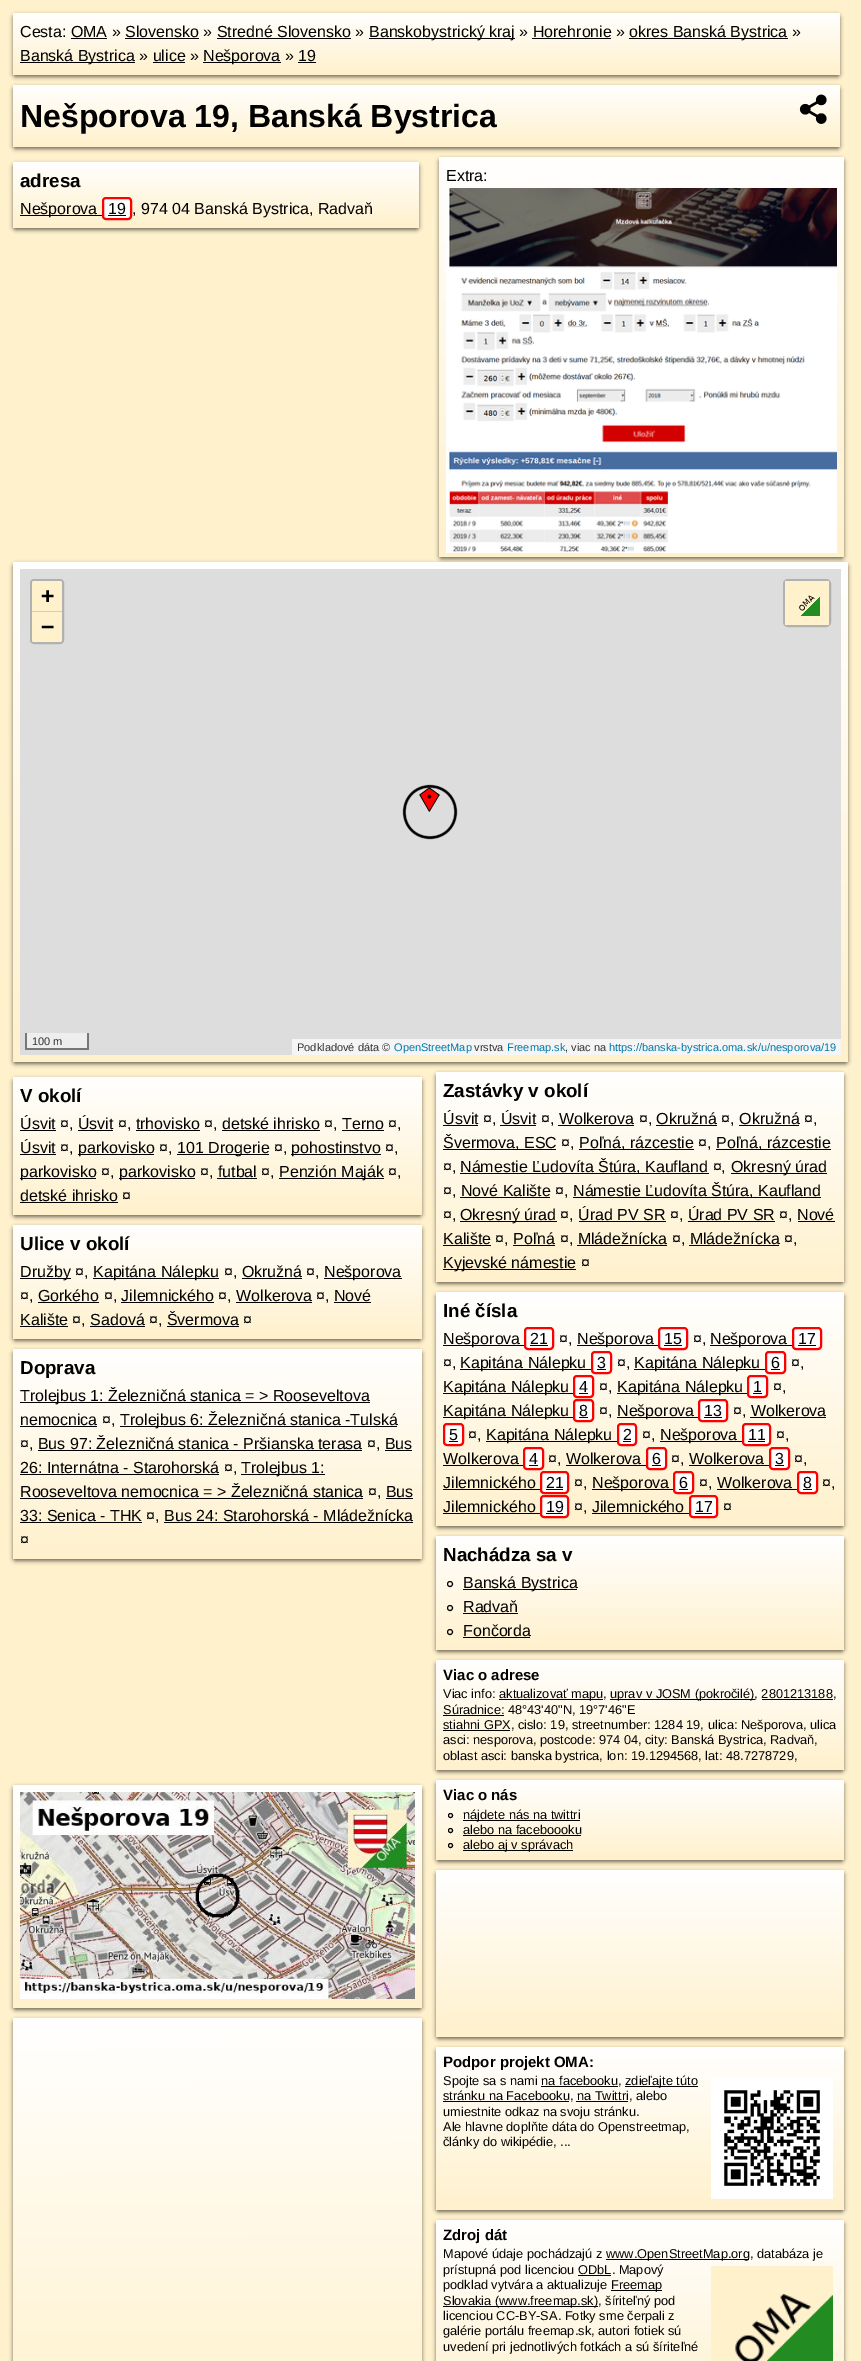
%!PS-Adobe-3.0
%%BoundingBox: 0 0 861 2361
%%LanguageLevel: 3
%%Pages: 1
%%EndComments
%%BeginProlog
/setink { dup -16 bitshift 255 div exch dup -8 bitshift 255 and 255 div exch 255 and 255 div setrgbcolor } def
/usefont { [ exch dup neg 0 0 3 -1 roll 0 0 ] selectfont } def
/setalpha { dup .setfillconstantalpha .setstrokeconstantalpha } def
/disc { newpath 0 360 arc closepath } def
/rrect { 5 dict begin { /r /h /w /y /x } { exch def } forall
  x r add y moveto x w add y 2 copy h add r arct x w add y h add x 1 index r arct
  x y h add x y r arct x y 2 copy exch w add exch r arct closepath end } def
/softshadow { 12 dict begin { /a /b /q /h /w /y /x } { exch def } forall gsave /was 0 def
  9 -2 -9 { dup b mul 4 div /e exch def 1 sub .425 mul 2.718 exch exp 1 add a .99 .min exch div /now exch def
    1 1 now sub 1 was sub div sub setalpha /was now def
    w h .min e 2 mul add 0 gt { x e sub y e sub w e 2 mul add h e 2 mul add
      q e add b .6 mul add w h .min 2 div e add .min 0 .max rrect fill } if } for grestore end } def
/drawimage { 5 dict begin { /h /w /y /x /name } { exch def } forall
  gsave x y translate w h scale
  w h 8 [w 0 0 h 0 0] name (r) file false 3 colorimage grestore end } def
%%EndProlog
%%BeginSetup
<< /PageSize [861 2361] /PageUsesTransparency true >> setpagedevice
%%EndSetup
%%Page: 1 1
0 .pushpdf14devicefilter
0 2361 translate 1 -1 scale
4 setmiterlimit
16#FFF1CC setink
0 0 861 2361 rectfill
16#000000 setink
13 15 827 62 3 2 0.55 softshadow
gsave 13 13 827 62 3 rrect clip newpath
<< /ShadingType 2 /ColorSpace /DeviceRGB /Coords [427 13 427 75] /Extend [true true] /Function << /FunctionType 2 /Domain [0 1] /C0 [1 1 1] /C1 [1 0.945 0.8] /N 1 >> >> shfill grestore
/LiberationSans-Regular 16 usefont
20 37 moveto (Cesta: OMA » Slovensko » Stredné Slovensko ») show
369 38 146 1 rectfill
369 37 moveto (Banskobystrický kraj » Horehronie ») show
629 38 159 1 rectfill
629 37 moveto (okres Banská Bystrica ») show
[
    [71 38 36 1 16#000000]
    [125 38 74 1 16#000000]
    [217 38 134 1 16#000000]
    [532 38 79 1 16#000000]
    [20 62 115 1 16#000000]
] { aload pop setink rectfill } forall
20 61 moveto (Banská Bystrica » ulice ») show
203 62 78 1 rectfill
203 61 moveto (Nešporova » 19) show
153 62 32 1 rectfill
298 62 18 1 rectfill
13 87 827 62 3 2 0.55 softshadow
gsave 13 85 827 62 3 rrect clip newpath
<< /ShadingType 2 /ColorSpace /DeviceRGB /Coords [427 85 427 147] /Extend [true true] /Function << /FunctionType 2 /Domain [0 1] /C0 [1 1 1] /C1 [1 0.945 0.8] /N 1 >> >> shfill grestore
/LiberationSans-Bold 32 usefont
20 127 moveto (Nešporova 19, Banská Bystrica) show
(img1.raw) 799 94 28 30 drawimage
13 164 406 66 3 2 0.55 softshadow
gsave 13 162 406 66 3 rrect clip newpath
<< /ShadingType 2 /ColorSpace /DeviceRGB /Coords [216 162 216 228] /Extend [true true] /Function << /FunctionType 2 /Domain [0 1] /C0 [1 1 1] /C1 [1 0.945 0.8] /N 1 >> >> shfill grestore
/LiberationSans-Bold 18.75 usefont
20 187 moveto (adresa) show
20 215 82 1 rectfill
/LiberationSans-Regular 16 usefont
20 214 moveto (Nešporova) show
16#FFFFFF setink
103 198 28 21 3 rrect gsave fill grestore
16#FF0000 setink
2 setlinewidth
stroke
16#000000 setink
108 214 moveto (19) show
108 215 18 1 rectfill
132 214 moveto (, 974 04 Banská Bystrica, Radvaň) show
439 159 405 400 3 2 0.55 softshadow
gsave 439 157 405 400 3 rrect clip newpath
<< /ShadingType 2 /ColorSpace /DeviceRGB /Coords [642 157 642 557] /Extend [true true] /Function << /FunctionType 2 /Domain [0 1] /C0 [1 1 1] /C1 [1 0.945 0.8] /N 1 >> >> shfill grestore
446 181 moveto (Extra:) show
(img2.raw) 446 188 391 365 drawimage
13 564 835 500 3 2 0.55 softshadow
gsave 13 562 835 500 3 rrect clip newpath
<< /ShadingType 2 /ColorSpace /DeviceRGB /Coords [430 562 431 1062] /Extend [true true] /Function << /FunctionType 2 /Domain [0 1] /C0 [1 1 1] /C1 [1 0.945 0.8] /N 1 >> >> shfill grestore
16#DDDDDD setink
20 569 821 486 rectfill
16#B1B1B1 setink
31 580 32 63 3 rrect stroke
16#FFF1CC setink
34 581 moveto 60 581 lineto 61 581 62 582 62 583 curveto 62 612 lineto 32 612 lineto 32 583 lineto 32 582 33 581 34 581 curveto closepath fill
16#CCCCCC setink
32 611 30 1 rectfill
/DejaVuSansMono-Bold 22 usefont
16#000000 setink
41 603 moveto (+) show
16#FFF1CC setink
32 612 moveto 62 612 lineto 62 640 lineto 62 641 61 642 60 642 curveto 34 642 lineto 33 642 32 641 32 640 curveto closepath fill
16#000000 setink
41 634 moveto (−) show
16#B1B1B1 setink
784 580 46 46 4 rrect stroke
16#FFF1CC setink
785 581 44 44 rectfill
(img3.raw) 799 595 21 21 drawimage
[
    [27 1033 60 15 16#EEEEEE]
    [87 1033 2 17 16#777777]
    [25 1048 64 2 16#777777]
    [25 1033 2 17 16#777777]
] { aload pop setink rectfill } forall
/LiberationSans-Regular 11 usefont
16#333333 setink
32 1045 moveto (100 m) show
16#F5F5F5 setink
292 1039 549 16 rectfill
16#333333 setink
297 1051 moveto (Podkladové dáta ©) show
16#0078A8 setink
394 1051 moveto (OpenStreetMap) show
16#333333 setink
474 1051 moveto (vrstva) show
16#0078A8 setink
507 1051 moveto (Freemap.sk) show
16#333333 setink
565 1051 moveto (, viac na) show
16#0078A8 setink
609 1051 moveto (https://banska-bystrica.oma.sk/u/nesporova/19) show
(img4.raw) 402 784 56 56 drawimage
(img5.raw) 419 787 21 25 drawimage
16#000000 setink
13 1079 409 138 3 2 0.55 softshadow
gsave 13 1077 409 138 3 rrect clip newpath
<< /ShadingType 2 /ColorSpace /DeviceRGB /Coords [218 1077 218 1215] /Extend [true true] /Function << /FunctionType 2 /Domain [0 1] /C0 [1 1 1] /C1 [1 0.945 0.8] /N 1 >> >> shfill grestore
/LiberationSans-Bold 18.75 usefont
20 1102 moveto (V okolí) show
20 1130 36 1 rectfill
/LiberationSans-Regular 16 usefont
20 1129 moveto (Úsvit ¤, Úsvit ¤, trhovisko ¤, detské ihrisko ¤, Terno ¤,) show
[
    [78 1130 35 1 16#000000]
    [136 1130 64 1 16#000000]
    [222 1130 98 1 16#000000]
    [342 1130 42 1 16#000000]
    [20 1154 36 1 16#000000]
] { aload pop setink rectfill } forall
20 1153 moveto (Úsvit ¤,) show
78 1154 76 1 rectfill
78 1153 moveto (parkovisko ¤,) show
177 1154 92 1 rectfill
177 1153 moveto (101 Drogerie ¤,) show
291 1154 90 1 rectfill
291 1153 moveto (pohostinstvo ¤,) show
20 1178 76 1 rectfill
20 1177 moveto (parkovisko ¤,) show
119 1178 76 1 rectfill
119 1177 moveto (parkovisko ¤, futbal ¤,) show
279 1178 105 1 rectfill
279 1177 moveto (Penzión Maják ¤,) show
217 1178 40 1 rectfill
20 1201 moveto (detské ihrisko ¤) show
20 1202 98 1 rectfill
436 1074 408 210 3 2 0.55 softshadow
gsave 436 1072 408 210 3 rrect clip newpath
<< /ShadingType 2 /ColorSpace /DeviceRGB /Coords [640 1072 640 1282] /Extend [true true] /Function << /FunctionType 2 /Domain [0 1] /C0 [1 1 1] /C1 [1 0.945 0.8] /N 1 >> >> shfill grestore
/LiberationSans-Bold 18.75 usefont
443 1097 moveto (Zastávky v okolí) show
443 1125 35 1 rectfill
/LiberationSans-Regular 16 usefont
443 1124 moveto (Úsvit ¤, Úsvit ¤, Wolkerova ¤, Okružná ¤, Okružná ¤,) show
[
    [500 1125 36 1 16#000000]
    [558 1125 76 1 16#000000]
    [656 1125 61 1 16#000000]
    [739 1125 60 1 16#000000]
    [443 1149 113 1 16#000000]
] { aload pop setink rectfill } forall
443 1148 moveto (Švermova, ESC ¤,) show
579 1149 115 1 rectfill
579 1148 moveto (Poľná, rázcestie ¤,) show
716 1149 115 1 rectfill
716 1148 moveto (Poľná, rázcestie) show
443 1172 moveto (¤,) show
460 1173 249 1 rectfill
460 1172 moveto (Námestie Ľudovíta Štúra, Kaufland ¤,) show
731 1173 96 1 rectfill
731 1172 moveto (Okresný úrad) show
443 1196 moveto (¤, Nové Kalište ¤,) show
573 1197 248 1 rectfill
573 1196 moveto (Námestie Ľudovíta Štúra, Kaufland) show
460 1197 90 1 rectfill
443 1220 moveto (¤,) show
460 1221 97 1 rectfill
460 1220 moveto (Okresný úrad ¤, Úrad PV SR ¤, Úrad PV SR ¤, Nové) show
[
    [579 1221 87 1 16#000000]
    [688 1221 87 1 16#000000]
    [443 1245 48 1 16#000000]
] { aload pop setink rectfill } forall
443 1244 moveto (Kalište ¤, Poľná ¤, Mládežnícka ¤, Mládežnícka ¤,) show
[
    [798 1221 37 1 16#000000]
    [513 1245 42 1 16#000000]
    [577 1245 90 1 16#000000]
    [689 1245 90 1 16#000000]
    [443 1269 133 1 16#000000]
] { aload pop setink rectfill } forall
443 1268 moveto (Kyjevské námestie ¤) show
13 1227 409 114 3 2 0.55 softshadow
gsave 13 1225 409 114 3 rrect clip newpath
<< /ShadingType 2 /ColorSpace /DeviceRGB /Coords [218 1225 218 1339] /Extend [true true] /Function << /FunctionType 2 /Domain [0 1] /C0 [1 1 1] /C1 [1 0.945 0.8] /N 1 >> >> shfill grestore
/LiberationSans-Bold 18.75 usefont
20 1250 moveto (Ulice v okolí) show
20 1278 51 1 rectfill
/LiberationSans-Regular 16 usefont
20 1277 moveto (Družby ¤,) show
93 1278 126 1 rectfill
93 1277 moveto (Kapitána Nálepku ¤, Okružná ¤,) show
324 1278 78 1 rectfill
324 1277 moveto (Nešporova) show
242 1278 60 1 rectfill
20 1301 moveto (¤, Gorkého ¤, Jilemnického ¤, Wolkerova ¤, Nové) show
[
    [38 1302 61 1 16#000000]
    [121 1302 93 1 16#000000]
    [236 1302 76 1 16#000000]
    [20 1326 48 1 16#000000]
] { aload pop setink rectfill } forall
20 1325 moveto (Kalište ¤, Sadová ¤, Švermova ¤) show
[
    [334 1302 37 1 16#000000]
    [90 1326 55 1 16#000000]
    [167 1326 72 1 16#000000]
] { aload pop setink rectfill } forall
13 1351 409 210 3 2 0.55 softshadow
gsave 13 1349 409 210 3 rrect clip newpath
<< /ShadingType 2 /ColorSpace /DeviceRGB /Coords [218 1349 218 1559] /Extend [true true] /Function << /FunctionType 2 /Domain [0 1] /C0 [1 1 1] /C1 [1 0.945 0.8] /N 1 >> >> shfill grestore
/LiberationSans-Bold 18.75 usefont
20 1374 moveto (Doprava) show
20 1402 350 1 rectfill
/LiberationSans-Regular 16 usefont
20 1401 moveto (Trolejbus 1: Železničná stanica = > Rooseveltova) show
20 1426 77 1 rectfill
20 1425 moveto (nemocnica ¤,) show
120 1426 277 1 rectfill
120 1425 moveto (Trolejbus 6: Železničná stanica -Tulská) show
20 1449 moveto (¤, Bus 97: Železničná stanica - Pršianska terasa ¤, Bus) show
38 1450 324 1 rectfill
20 1474 199 1 rectfill
20 1473 moveto (26: Internátna - Starohorská ¤,) show
385 1450 27 1 rectfill
241 1474 84 1 rectfill
241 1473 moveto (Trolejbus 1:) show
20 1498 343 1 rectfill
20 1497 moveto (Rooseveltova nemocnica = > Železničná stanica ¤, Bus) show
20 1522 122 1 rectfill
20 1521 moveto (33: Senica - THK ¤, Bus 24: Starohorská - Mládežnícka) show
386 1498 27 1 rectfill
164 1522 249 1 rectfill
20 1545 moveto (¤) show
436 1294 408 234 3 2 0.55 softshadow
gsave 436 1292 408 234 3 rrect clip newpath
<< /ShadingType 2 /ColorSpace /DeviceRGB /Coords [640 1292 640 1526] /Extend [true true] /Function << /FunctionType 2 /Domain [0 1] /C0 [1 1 1] /C1 [1 0.945 0.8] /N 1 >> >> shfill grestore
/LiberationSans-Bold 18.75 usefont
443 1317 moveto (Iné čísla) show
443 1345 81 1 rectfill
/LiberationSans-Regular 16 usefont
443 1344 moveto (Nešporova) show
16#FFFFFF setink
525 1328 28 21 3 rrect gsave fill grestore
16#FF0000 setink
stroke
16#000000 setink
530 1344 moveto (21) show
530 1345 18 1 rectfill
559 1344 moveto (¤,) show
577 1345 81 1 rectfill
577 1344 moveto (Nešporova) show
16#FFFFFF setink
659 1328 28 21 3 rrect gsave fill grestore
16#FF0000 setink
stroke
16#000000 setink
664 1344 moveto (15) show
664 1345 18 1 rectfill
693 1344 moveto (¤,) show
710 1345 82 1 rectfill
710 1344 moveto (Nešporova) show
16#FFFFFF setink
793 1328 28 21 3 rrect gsave fill grestore
16#FF0000 setink
stroke
16#000000 setink
798 1344 moveto (17) show
798 1345 18 1 rectfill
443 1368 moveto (¤,) show
460 1369 131 1 rectfill
460 1368 moveto (Kapitána Nálepku) show
16#FFFFFF setink
592 1352 19 21 3 rrect gsave fill grestore
16#FF0000 setink
stroke
16#000000 setink
597 1368 moveto (3) show
597 1369 9 1 rectfill
617 1368 moveto (¤,) show
634 1369 131 1 rectfill
634 1368 moveto (Kapitána Nálepku) show
16#FFFFFF setink
766 1352 19 21 3 rrect gsave fill grestore
16#FF0000 setink
stroke
16#000000 setink
771 1368 moveto (6) show
771 1369 9 1 rectfill
791 1368 moveto (¤,) show
443 1393 130 1 rectfill
443 1392 moveto (Kapitána Nálepku) show
16#FFFFFF setink
574 1376 19 21 3 rrect gsave fill grestore
16#FF0000 setink
stroke
16#000000 setink
579 1392 moveto (4) show
579 1393 9 1 rectfill
599 1392 moveto (¤,) show
617 1393 130 1 rectfill
617 1392 moveto (Kapitána Nálepku) show
16#FFFFFF setink
748 1376 19 21 3 rrect gsave fill grestore
16#FF0000 setink
stroke
16#000000 setink
753 1392 moveto (1) show
753 1393 9 1 rectfill
773 1392 moveto (¤,) show
443 1417 130 1 rectfill
443 1416 moveto (Kapitána Nálepku) show
16#FFFFFF setink
574 1400 19 21 3 rrect gsave fill grestore
16#FF0000 setink
stroke
16#000000 setink
579 1416 moveto (8) show
579 1417 9 1 rectfill
599 1416 moveto (¤,) show
617 1417 81 1 rectfill
617 1416 moveto (Nešporova) show
16#FFFFFF setink
699 1400 28 21 3 rrect gsave fill grestore
16#FF0000 setink
stroke
16#000000 setink
704 1416 moveto (13) show
704 1417 18 1 rectfill
733 1416 moveto (¤, Wolkerova) show
16#FFFFFF setink
444 1424 19 21 3 rrect gsave fill grestore
16#FF0000 setink
stroke
16#000000 setink
449 1440 moveto (5) show
750 1417 76 1 rectfill
449 1441 9 1 rectfill
468 1440 moveto (¤,) show
486 1441 131 1 rectfill
486 1440 moveto (Kapitána Nálepku) show
16#FFFFFF setink
618 1424 18 21 3 rrect gsave fill grestore
16#FF0000 setink
stroke
16#000000 setink
623 1440 moveto (2) show
623 1441 8 1 rectfill
642 1440 moveto (¤,) show
660 1441 82 1 rectfill
660 1440 moveto (Nešporova) show
16#FFFFFF setink
743 1424 27 21 3 rrect gsave fill grestore
16#FF0000 setink
stroke
16#000000 setink
748 1440 moveto (11) show
748 1441 17 1 rectfill
776 1440 moveto (¤,) show
443 1464 moveto (Wolkerova) show
443 1465 80 1 rectfill
16#FFFFFF setink
524 1448 19 21 3 rrect gsave fill grestore
16#FF0000 setink
stroke
16#000000 setink
529 1464 moveto (4) show
529 1465 9 1 rectfill
548 1464 moveto (¤, Wolkerova) show
16#FFFFFF setink
647 1448 19 21 3 rrect gsave fill grestore
16#FF0000 setink
stroke
16#000000 setink
652 1464 moveto (6) show
566 1465 80 1 rectfill
652 1465 9 1 rectfill
671 1464 moveto (¤, Wolkerova) show
16#FFFFFF setink
770 1448 19 21 3 rrect gsave fill grestore
16#FF0000 setink
stroke
16#000000 setink
775 1464 moveto (3) show
689 1465 80 1 rectfill
775 1465 9 1 rectfill
794 1464 moveto (¤,) show
443 1488 moveto (Jilemnického) show
443 1489 97 1 rectfill
16#FFFFFF setink
541 1472 27 21 3 rrect gsave fill grestore
16#FF0000 setink
stroke
16#000000 setink
546 1488 moveto (21) show
546 1489 17 1 rectfill
574 1488 moveto (¤,) show
592 1489 81 1 rectfill
592 1488 moveto (Nešporova) show
16#FFFFFF setink
674 1472 19 21 3 rrect gsave fill grestore
16#FF0000 setink
stroke
16#000000 setink
679 1488 moveto (6) show
679 1489 9 1 rectfill
699 1488 moveto (¤, Wolkerova) show
16#FFFFFF setink
798 1472 19 21 3 rrect gsave fill grestore
16#FF0000 setink
stroke
16#000000 setink
803 1488 moveto (8) show
717 1489 80 1 rectfill
803 1489 9 1 rectfill
822 1488 moveto (¤,) show
443 1512 moveto (Jilemnického) show
443 1513 97 1 rectfill
16#FFFFFF setink
541 1496 27 21 3 rrect gsave fill grestore
16#FF0000 setink
stroke
16#000000 setink
546 1512 moveto (19) show
546 1513 17 1 rectfill
574 1512 moveto (¤, Jilemnického) show
16#FFFFFF setink
690 1496 27 21 3 rrect gsave fill grestore
16#FF0000 setink
stroke
16#000000 setink
695 1512 moveto (17) show
592 1513 97 1 rectfill
695 1513 17 1 rectfill
723 1512 moveto (¤) show
436 1538 408 114 3 2 0.55 softshadow
gsave 436 1536 408 114 3 rrect clip newpath
<< /ShadingType 2 /ColorSpace /DeviceRGB /Coords [640 1536 640 1650] /Extend [true true] /Function << /FunctionType 2 /Domain [0 1] /C0 [1 1 1] /C1 [1 0.945 0.8] /N 1 >> >> shfill grestore
/LiberationSans-Bold 18.75 usefont
443 1561 moveto (Nachádza sa v) show
1 setlinewidth
450 1584 2.5 disc stroke
463 1589 114 1 rectfill
/LiberationSans-Regular 16 usefont
463 1588 moveto (Banská Bystrica) show
450 1608 2.5 disc stroke
463 1612 moveto (Radvaň) show
463 1613 55 1 rectfill
450 1632 2.5 disc stroke
463 1636 moveto (Fončorda) show
463 1637 67 1 rectfill
436 1662 408 110 3 2 0.55 softshadow
gsave 436 1660 408 110 3 rrect clip newpath
<< /ShadingType 2 /ColorSpace /DeviceRGB /Coords [640 1660 640 1770] /Extend [true true] /Function << /FunctionType 2 /Domain [0 1] /C0 [1 1 1] /C1 [1 0.945 0.8] /N 1 >> >> shfill grestore
/LiberationSans-Bold 15 usefont
443 1680 moveto (Viac o adrese) show
/LiberationSans-Regular 12.8 usefont
443 1698 moveto (Viac info:) show
499 1699 104 1 rectfill
499 1698 moveto (aktualizovať mapu,) show
610 1699 145 1 rectfill
610 1698 moveto (uprav v JOSM \(pokročilé\), 2801213188,) show
762 1699 71 1 rectfill
443 1715 61 1 rectfill
443 1714 moveto (Súradnice: 48°43'40"N, 19°7'46"E) show
443 1730 67 1 rectfill
[
    [(stiahni GPX, cislo: 19, streetnumber: 1284 19, ulica: Nešporova, ulica) 443 1729]
    [(asci: nesporova, postcode: 974 04, city: Banská Bystrica, Radvaň,) 443 1744]
    [(oblast asci: banska bystrica, lon: 19.1294568, lat: 48.7278729,) 443 1760]
] { aload pop moveto show } forall
13 1787 409 223 3 2 0.55 softshadow
gsave 13 1785 409 223 3 rrect clip newpath
<< /ShadingType 2 /ColorSpace /DeviceRGB /Coords [218 1785 218 2008] /Extend [true true] /Function << /FunctionType 2 /Domain [0 1] /C0 [1 1 1] /C1 [1 0.945 0.8] /N 1 >> >> shfill grestore
(img6.raw) 20 1792 395 207 drawimage
436 1782 408 80 3 2 0.55 softshadow
gsave 436 1780 408 80 3 rrect clip newpath
<< /ShadingType 2 /ColorSpace /DeviceRGB /Coords [640 1780 640 1860] /Extend [true true] /Function << /FunctionType 2 /Domain [0 1] /C0 [1 1 1] /C1 [1 0.945 0.8] /N 1 >> >> shfill grestore
/LiberationSans-Bold 15 usefont
443 1800 moveto (Viac o nás) show
450.5 1815.5 2 disc stroke
463 1820 117 1 rectfill
/LiberationSans-Regular 12.8 usefont
463 1819 moveto (nájdete nás na twittri) show
450.5 1830.5 2 disc stroke
463 1834 moveto (alebo na faceboooku) show
463 1835 118 1 rectfill
450.5 1845.5 2 disc stroke
463 1850 110 1 rectfill
463 1849 moveto (alebo aj v správach) show
436 1872 408 167 3 2 0.55 softshadow
gsave 436 1870 408 167 3 rrect clip newpath
<< /ShadingType 2 /ColorSpace /DeviceRGB /Coords [640 1870 640 2037] /Extend [true true] /Function << /FunctionType 2 /Domain [0 1] /C0 [1 1 1] /C1 [1 0.945 0.8] /N 1 >> >> shfill grestore
13 2020 409 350 3 2 0.55 softshadow
gsave 13 2018 409 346 3 rrect clip newpath
<< /ShadingType 2 /ColorSpace /DeviceRGB /Coords [217 2018 218 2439] /Extend [true true] /Function << /FunctionType 2 /Domain [0 1] /C0 [1 1 1] /C1 [1 0.945 0.8] /N 1 >> >> shfill grestore
436 2049 408 163 3 2 0.55 softshadow
gsave 436 2047 408 163 3 rrect clip newpath
<< /ShadingType 2 /ColorSpace /DeviceRGB /Coords [640 2047 640 2210] /Extend [true true] /Function << /FunctionType 2 /Domain [0 1] /C0 [1 1 1] /C1 [1 0.945 0.8] /N 1 >> >> shfill grestore
/LiberationSans-Bold 15 usefont
443 2067 moveto (Podpor projekt OMA:) show
/LiberationSans-Regular 12.8 usefont
443 2085 moveto (Spojte sa s nami na facebooku,) show
625 2086 73 1 rectfill
625 2085 moveto (zdieľajte túto) show
541 2086 77 1 rectfill
443 2101 126 1 rectfill
443 2100 moveto (stránku na Facebooku, na Twittri, alebo) show
576 2101 52 1 rectfill
443 2116 moveto (umiestnite odkaz na svoju stránku.) show
(img7.raw) 711 2077 122 122 drawimage
443 2131 moveto (Ale hlavne doplňte dáta do Openstreetmap,) show
443 2146 moveto (články do wikipédie, ...) show
436 2222 408 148 3 2 0.55 softshadow
gsave 436 2220 408 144 3 rrect clip newpath
<< /ShadingType 2 /ColorSpace /DeviceRGB /Coords [640 2220 640 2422] /Extend [true true] /Function << /FunctionType 2 /Domain [0 1] /C0 [1 1 1] /C1 [1 0.945 0.8] /N 1 >> >> shfill grestore
/LiberationSans-Bold 15 usefont
443 2240 moveto (Zdroj dát) show
/LiberationSans-Regular 12.8 usefont
443 2258 moveto (Mapové údaje pochádzajú z) show
606 2259 143 1 rectfill
606 2258 moveto (www.OpenStreetMap.org, databáza je) show
443 2274 moveto (prístupná pod licenciou ODbL. Mapový) show
(img8.raw) 711 2266 122 95 drawimage
578 2275 33 1 rectfill
443 2289 moveto (podklad vytvára a aktualizuje) show
611 2290 51 1 rectfill
611 2289 moveto (Freemap) show
443 2306 155 1 rectfill
[
    [(Slovakia \(www.freemap.sk\), šíriteľný pod) 443 2305]
    [(licenciou CC-BY-SA. Fotky sme čerpali z) 443 2320]
    [(galérie portálu freemap.sk, autori fotiek sú) 443 2335]
    [(uvedení pri jednotlivých fotkách a sú šíriteľné) 443 2351]
] { aload pop moveto show } forall
.poppdf14devicefilter showpage
%%EOF
